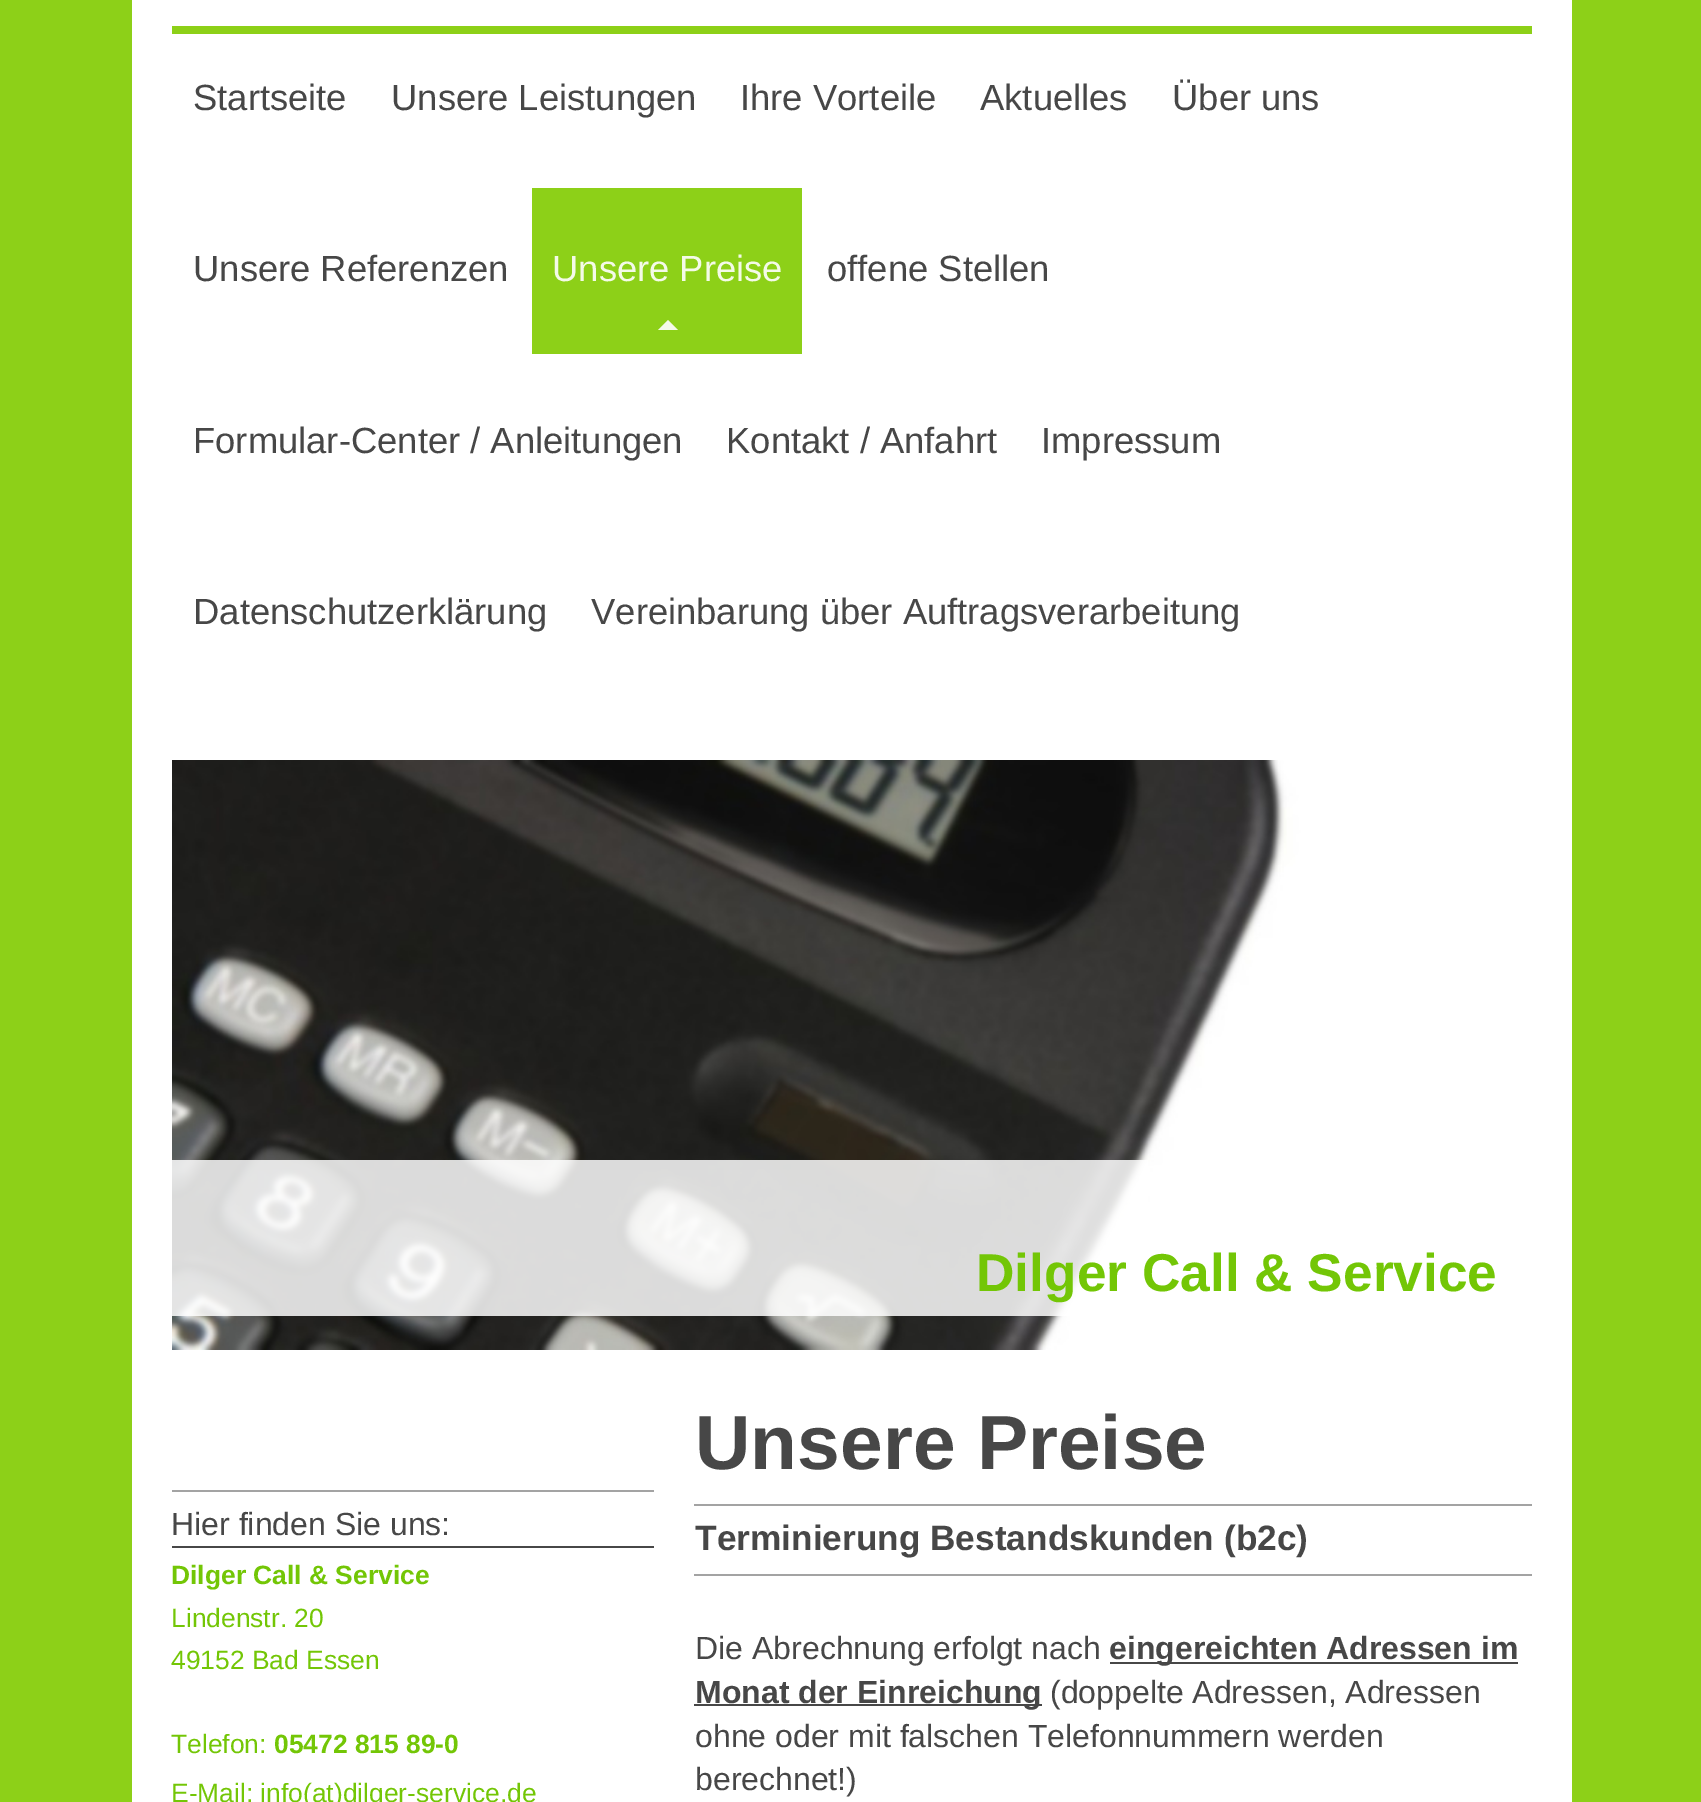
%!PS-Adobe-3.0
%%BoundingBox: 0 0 1701 1802
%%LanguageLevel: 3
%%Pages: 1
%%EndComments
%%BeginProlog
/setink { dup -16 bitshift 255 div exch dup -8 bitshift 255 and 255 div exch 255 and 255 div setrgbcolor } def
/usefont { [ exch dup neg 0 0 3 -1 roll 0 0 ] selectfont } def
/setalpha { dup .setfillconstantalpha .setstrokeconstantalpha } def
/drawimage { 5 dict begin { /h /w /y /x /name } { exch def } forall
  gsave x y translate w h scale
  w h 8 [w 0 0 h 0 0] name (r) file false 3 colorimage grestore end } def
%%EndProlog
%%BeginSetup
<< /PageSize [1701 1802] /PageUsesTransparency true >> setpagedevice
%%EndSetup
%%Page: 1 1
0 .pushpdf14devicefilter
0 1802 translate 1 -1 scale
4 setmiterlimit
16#8DD018 setink
0 0 1701 1802 rectfill
16#FFFFFF setink
132 0 1440 1802 rectfill
16#8DD018 setink
172 26 1360 8 rectfill
/LiberationSans-Regular 36.4 usefont
16#474747 setink
[
    [(Startseite) 193 110]
    [(Unsere Leistungen) 391 110]
    [(Ihre Vorteile) 740 110]
    [(Aktuelles) 980 110]
    [(Über uns) 1172 110]
    [(Unsere Referenzen) 193 281]
] { aload pop moveto show } forall
16#8DD018 setink
532 188 270 166 rectfill
16#F4FAE8 setink
552 281 moveto (Unsere Preise) show
678 330 moveto 658 330 lineto 668 320 lineto closepath fill
16#474747 setink
[
    [(offene Stellen) 827 281]
    [(Formular-Center / Anleitungen) 193 453]
    [(Kontakt / Anfahrt) 726 453]
    [(Impressum) 1041 453]
    [(Datenschutzerklärung) 193 624]
    [(Vereinbarung über Auftragsverarbeitung) 591 624]
] { aload pop moveto show } forall
(img1.raw) 172 760 1360 590 drawimage
0.84 setalpha
16#FFFFFF setink
172 1160 976 156 rectfill
/LiberationSans-Bold 53.25 usefont
1 setalpha
16#73C606 setink
976 1291 moveto (Dilger Call & Service) show
16#A3A3A3 setink
172 1490 482 2 rectfill
16#474747 setink
172 1546 482 2 rectfill
/LiberationSans-Regular 32 usefont
171 1535 moveto (Hier finden Sie uns:) show
/LiberationSans-Bold 26.4 usefont
16#73C606 setink
171 1584 moveto (Dilger Call & Service) show
/LiberationSans-Regular 26.4 usefont
[
    [(Lindenstr. 20) 171 1627]
    [(49152 Bad Essen) 171 1669]
    [(Telefon:) 171 1753]
] { aload pop moveto show } forall
/LiberationSans-Bold 26.4 usefont
274 1753 moveto (05472 815 89-0) show
/LiberationSans-Regular 26.4 usefont
171 1802 moveto (E-Mail: info\(at\)dilger-service.de) show
/LiberationSans-Bold 76.75 usefont
16#474747 setink
695 1469 moveto (Unsere Preise) show
16#A3A3A3 setink
694 1504 838 2 rectfill
/LiberationSans-Bold 35.25 usefont
16#474747 setink
695 1550 moveto (Terminierung Bestandskunden \(b2c\)) show
16#A3A3A3 setink
694 1574 838 2 rectfill
/LiberationSans-Regular 32 usefont
16#474747 setink
695 1659 moveto (Die Abrechnung erfolgt nach) show
1110 1662 408 2 rectfill
/LiberationSans-Bold 32 usefont
1109 1659 moveto (eingereichten Adressen im) show
694 1704 348 2 rectfill
695 1703 moveto (Monat der Einreichung) show
/LiberationSans-Regular 32 usefont
[
    [(\(doppelte Adressen, Adressen) 1050 1703]
    [(ohne oder mit falschen Telefonnummern werden) 695 1747]
    [(berechnet!\)) 695 1790]
] { aload pop moveto show } forall
.poppdf14devicefilter showpage
%%EOF
